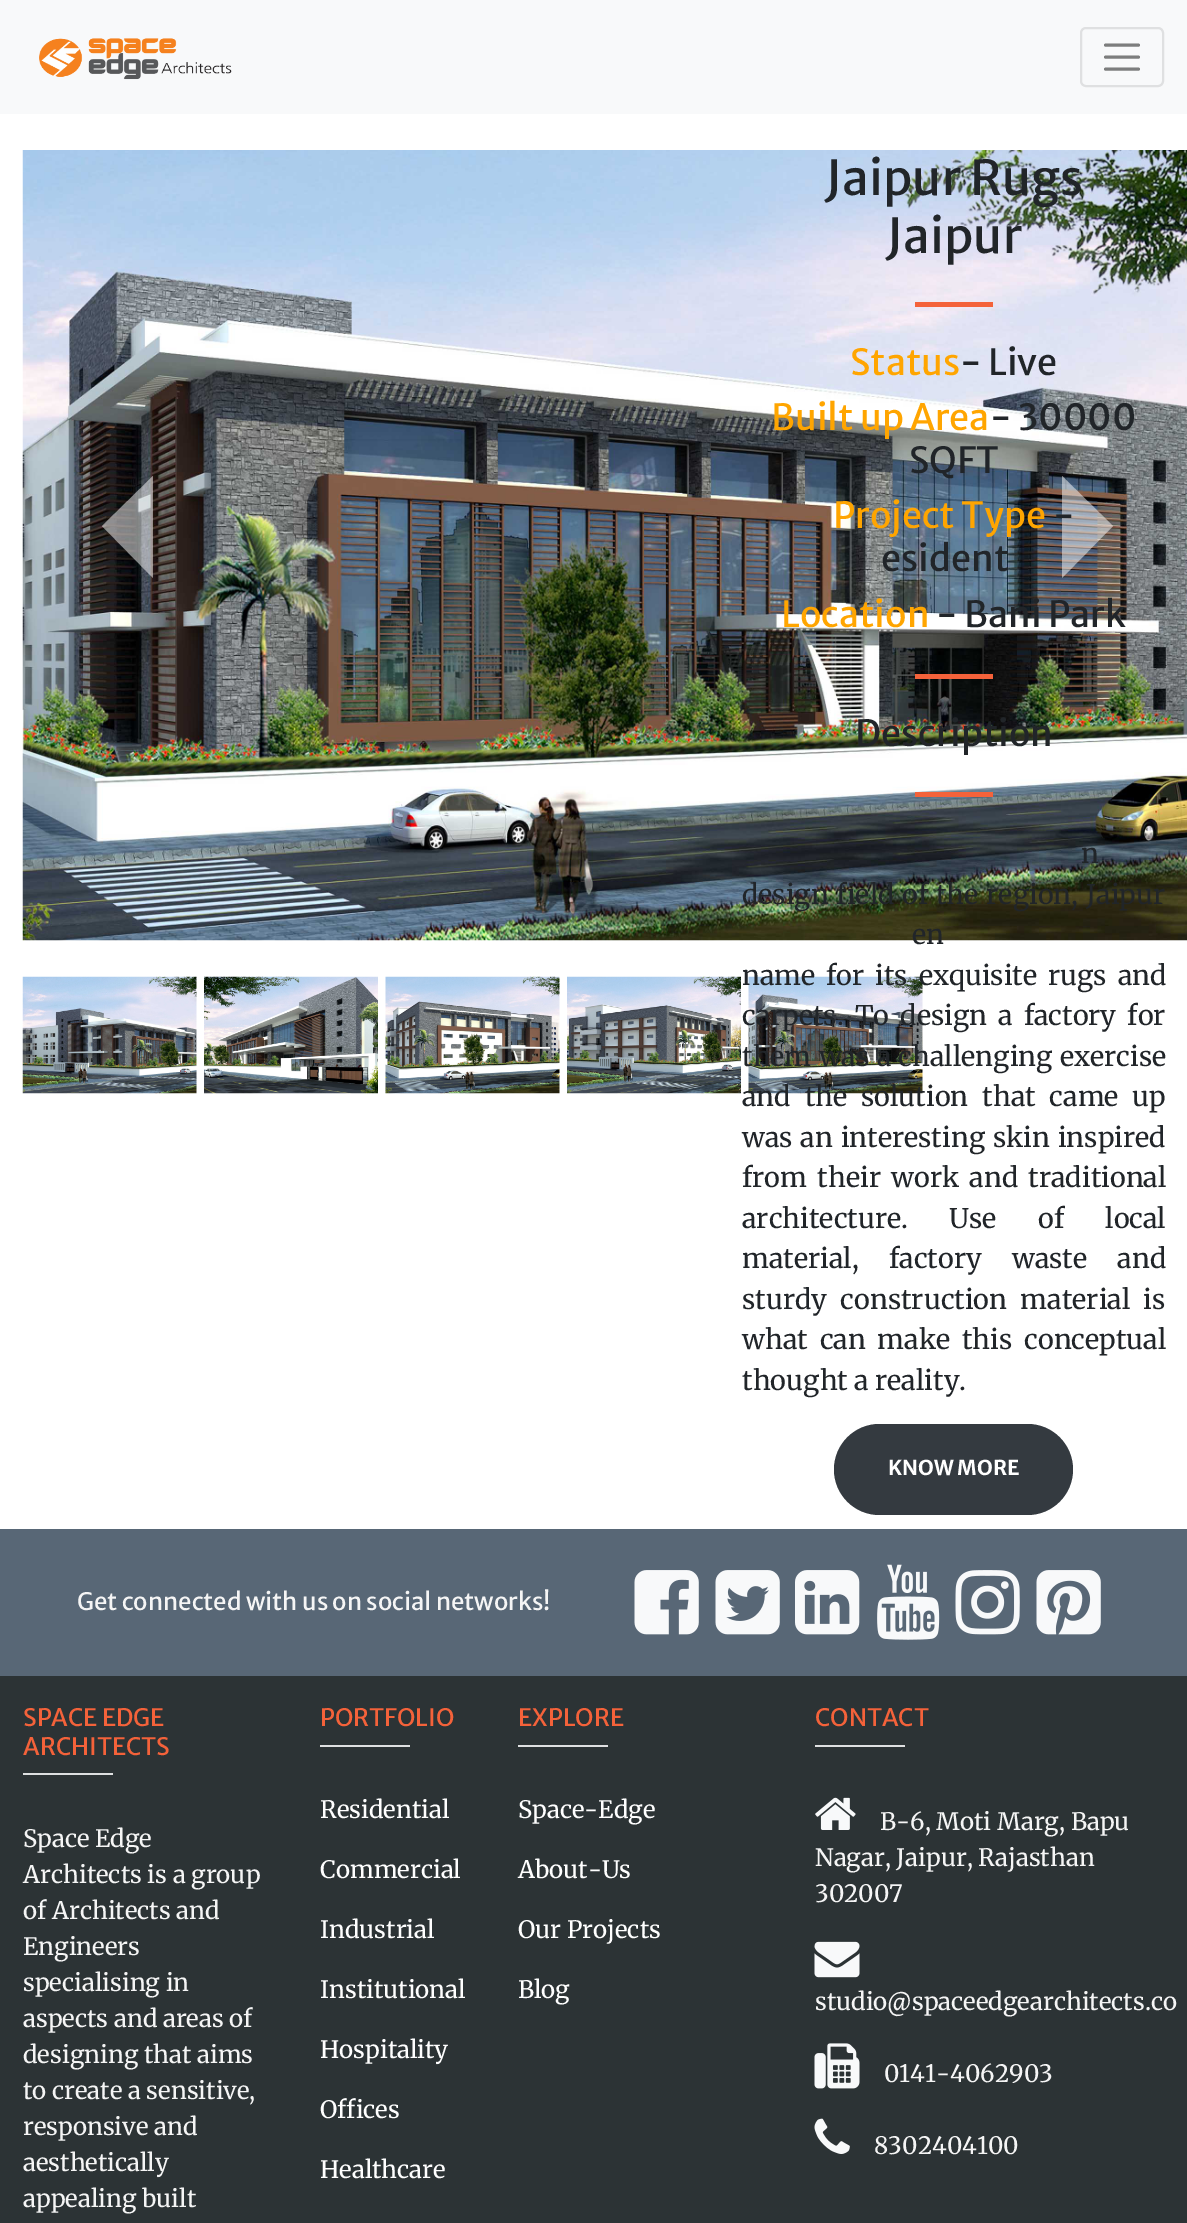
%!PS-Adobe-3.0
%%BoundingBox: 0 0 1187 2223
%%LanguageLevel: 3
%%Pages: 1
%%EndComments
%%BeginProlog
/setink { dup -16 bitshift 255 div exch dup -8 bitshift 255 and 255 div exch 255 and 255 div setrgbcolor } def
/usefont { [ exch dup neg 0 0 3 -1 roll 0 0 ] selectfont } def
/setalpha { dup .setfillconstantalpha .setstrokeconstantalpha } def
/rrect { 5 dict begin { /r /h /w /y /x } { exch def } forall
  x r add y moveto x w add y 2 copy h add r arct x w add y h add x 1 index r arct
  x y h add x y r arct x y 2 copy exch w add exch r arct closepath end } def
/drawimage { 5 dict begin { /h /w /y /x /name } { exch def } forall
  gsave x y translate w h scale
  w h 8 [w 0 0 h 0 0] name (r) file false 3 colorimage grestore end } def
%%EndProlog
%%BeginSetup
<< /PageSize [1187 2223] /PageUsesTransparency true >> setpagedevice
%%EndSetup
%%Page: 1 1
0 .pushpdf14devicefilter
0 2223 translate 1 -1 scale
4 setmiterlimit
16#FFFFFF setink
0 0 1187 2223 rectfill
16#F8F9FA setink
0 0 1187 114 rectfill
(img1.raw) 39 38 193 42 drawimage
16#DFE0E1 setink
2 setlinewidth
1081 28 82 58 5 rrect stroke
16#7C7D7D setink
3 setlinewidth
1 setlinecap
1105.5 45 moveto 1138.5 45 lineto 1105.5 57 moveto 1138.5 57 lineto 1105.5 69 moveto 1138.5 69 lineto stroke
(img2.raw) 22 150 1165 791 drawimage
0.5 setalpha
16#FFFFFF setink
153 476 moveto 153 578 lineto 102 526 lineto closepath fill
1062 578 moveto 1062 476 lineto 1113 526 lineto closepath fill
1 setalpha
(img3.raw) 22 976 175 118 drawimage
(img4.raw) 204 976 174 118 drawimage
(img5.raw) 385 976 175 118 drawimage
(img6.raw) 567 976 174 118 drawimage
(img7.raw) 748 976 175 118 drawimage
/MerriweatherSans-Regular 48 usefont
16#212529 setink
825 195 moveto (Jaipur Rugs) show
886 253 moveto (Jaipur) show
16#F4623A setink
915 302 78 5 rectfill
/MerriweatherSans-Regular 36 usefont
16#FFA500 setink
850 375 moveto (Status) show
16#212529 setink
960 375 moveto (- Live) show
16#FFA500 setink
771 430 moveto (Built up Area) show
16#212529 setink
990 430 moveto (- 30000) show
909 473 moveto (SQFT) show
16#FFA500 setink
833 528 moveto (Project Type) show
16#212529 setink
1053 528 moveto (-) show
881 571 moveto (esident) show
16#FFA500 setink
781 627 moveto (Location) show
16#212529 setink
936 627 moveto (- Bani Park) show
16#F4623A setink
915 674 78 5 rectfill
16#212529 setink
855 746 moveto (Description) show
16#F4623A setink
915 792 78 5 rectfill
/Merriweather-Regular 27 usefont
16#212529 setink
1081 863 moveto 18 0 32 (n) widthshow
742 904 moveto 1.5 0 32 (design field of the region, Jaipur) widthshow
912 944 moveto 8 0 32 (en) widthshow
742 985 moveto 4.5 0 32 (name for its exquisite rugs and) widthshow
742 1025 moveto 4.75 0 32 (carpets. To design a factory for) widthshow
742 1066 moveto 1 0 32 (them was a challenging exercise) widthshow
742 1106 moveto 7.5 0 32 (and the solution that came up) widthshow
742 1147 moveto 1.5 0 32 (was an interesting skin inspired) widthshow
742 1187 moveto 4 0 32 (from their work and traditional) widthshow
742 1228 moveto 35 0 32 (architecture. Use of local) widthshow
742 1268 moveto 24 0 32 (material, factory waste and) widthshow
742 1309 moveto 7 0 32 (sturdy construction material is) widthshow
742 1349 moveto 5.5 0 32 (what can make this conceptual) widthshow
742 1390 moveto (thought a reality.) show
16#343A40 setink
834 1424 239 91 45.5 rrect fill
/MerriweatherSans-Bold 20.5 usefont
16#FFFFFF setink
888 1475 moveto (KNOW MORE) show
16#586776 setink
0 1529 1187 147 rectfill
/MerriweatherSans-Regular 24 usefont
16#F5F5F5 setink
77 1610 moveto (Get connected with us on social networks!) show
(img8.raw) 634 1570 65 65 drawimage
(img9.raw) 715 1570 65 65 drawimage
(img10.raw) 795 1570 65 65 drawimage
(img11.raw) 877 1564 63 76 drawimage
(img12.raw) 955 1570 65 65 drawimage
(img13.raw) 1036 1570 65 65 drawimage
16#2C3335 setink
0 1676 1187 547 rectfill
16#F4623A setink
23 1726 moveto (SPACE EDGE) show
23 1755 moveto (ARCHITECTS) show
16#DFE0E1 setink
23 1773 90 2 rectfill
/Merriweather-Regular 24 usefont
16#F5F5F5 setink
[
    [(Space Edge) 23 1847]
    [(Architects is a group) 23 1883]
    [(of Architects and) 23 1919]
    [(Engineers) 23 1955]
    [(specialising in) 23 1991]
    [(aspects and areas of) 23 2027]
    [(designing that aims) 23 2063]
    [(to create a sensitive,) 23 2099]
    [(responsive and) 23 2135]
    [(aesthetically) 23 2171]
    [(appealing built) 23 2207]
] { aload pop moveto show } forall
/MerriweatherSans-Regular 24 usefont
16#F4623A setink
320 1726 moveto (PORTFOLIO) show
16#DFE0E1 setink
320 1745 90 2 rectfill
/Merriweather-Regular 24 usefont
16#FFFFFF setink
[
    [(Residential) 320 1818]
    [(Commercial) 320 1878]
    [(Industrial) 320 1938]
    [(Institutional) 320 1998]
    [(Hospitality) 320 2058]
    [(Offices) 320 2118]
    [(Healthcare) 320 2178]
] { aload pop moveto show } forall
/MerriweatherSans-Regular 24 usefont
16#F4623A setink
518 1726 moveto (EXPLORE) show
16#DFE0E1 setink
518 1745 90 2 rectfill
/Merriweather-Regular 24 usefont
16#FFFFFF setink
[
    [(Space-Edge) 518 1818]
    [(About-Us) 518 1878]
    [(Our Projects) 518 1938]
    [(Blog) 518 1998]
] { aload pop moveto show } forall
/MerriweatherSans-Regular 24 usefont
16#F4623A setink
815 1726 moveto (CONTACT) show
16#DFE0E1 setink
815 1745 90 2 rectfill
(img14.raw) 815 1797 41 33 drawimage
/Merriweather-Regular 24 usefont
16#F5F5F5 setink
[
    [(B-6, Moti Marg, Bapu) 880 1830]
    [(Nagar, Jaipur, Rajasthan) 815 1866]
    [(302007) 815 1902]
] { aload pop moveto show } forall
(img15.raw) 814 1941 46 37 drawimage
815 2010 moveto (studio@spaceedgearchitects.co) show
(img16.raw) 814 2043 46 46 drawimage
884 2082 moveto (0141-4062903) show
(img17.raw) 814 2118 36 36 drawimage
874 2154 moveto (8302404100) show
.poppdf14devicefilter showpage
%%EOF
